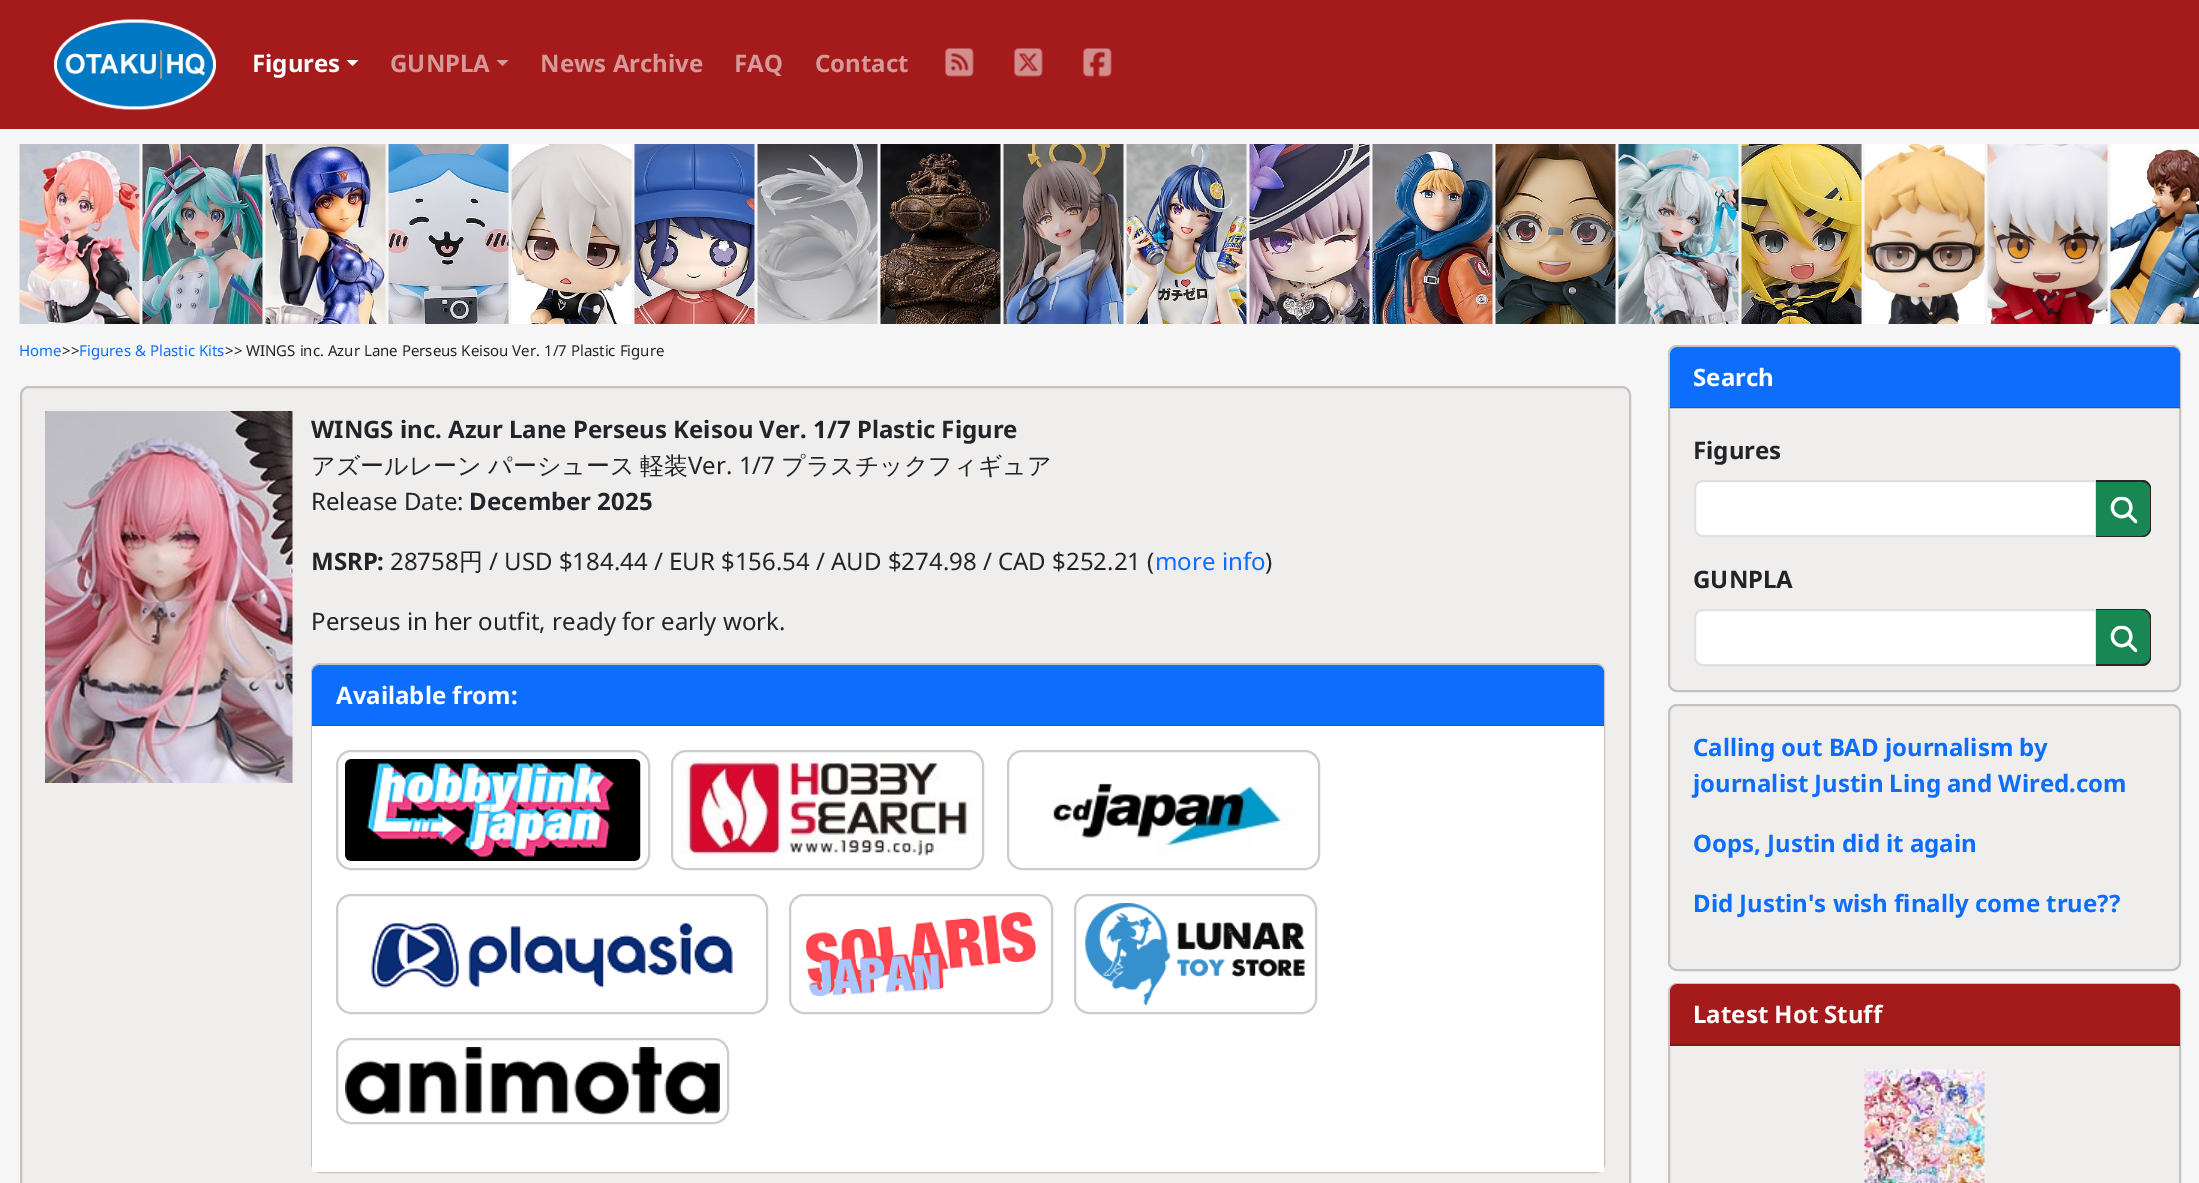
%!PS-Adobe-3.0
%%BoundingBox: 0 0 2199 1183
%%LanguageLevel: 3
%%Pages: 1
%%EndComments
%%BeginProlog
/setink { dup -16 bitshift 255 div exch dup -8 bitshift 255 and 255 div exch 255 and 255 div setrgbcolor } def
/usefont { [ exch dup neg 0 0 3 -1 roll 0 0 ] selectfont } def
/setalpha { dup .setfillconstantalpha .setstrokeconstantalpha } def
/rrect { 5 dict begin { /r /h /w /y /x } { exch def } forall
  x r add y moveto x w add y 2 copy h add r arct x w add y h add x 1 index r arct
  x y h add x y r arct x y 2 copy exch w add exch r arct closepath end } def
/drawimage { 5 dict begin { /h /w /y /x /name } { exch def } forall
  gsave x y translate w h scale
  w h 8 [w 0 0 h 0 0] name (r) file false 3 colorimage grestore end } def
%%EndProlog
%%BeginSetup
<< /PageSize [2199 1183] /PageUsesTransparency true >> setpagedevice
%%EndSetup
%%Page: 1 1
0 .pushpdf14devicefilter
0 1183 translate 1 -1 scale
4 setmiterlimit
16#F7F6F6 setink
0 0 2199 1183 rectfill
16#A51A1B setink
0 0 2199 129 rectfill
(img1.raw) 54 19 162 91 drawimage
/NotoSans-Bold 24 usefont
16#FFFFFF setink
252 72 moveto (Figures) show
346.5 60 moveto 358.5 60 lineto 352.5 66 lineto closepath fill
16#D79898 setink
390 72 moveto (GUNPLA) show
496.5 60 moveto 508.5 60 lineto 502.5 66 lineto closepath fill
[
    [(News Archive) 540 72]
    [(FAQ) 734 72]
    [(Contact) 815 72]
] { aload pop moveto show } forall
(img2.raw) 945 48 29 29 drawimage
(img3.raw) 1014 48 29 29 drawimage
(img4.raw) 1083 48 29 29 drawimage
(img5.raw) 19 144 121 180 drawimage
(img6.raw) 142 144 121 180 drawimage
(img7.raw) 265 144 121 180 drawimage
(img8.raw) 388 144 121 180 drawimage
(img9.raw) 511 144 121 180 drawimage
(img10.raw) 634 144 121 180 drawimage
(img11.raw) 757 144 121 180 drawimage
(img12.raw) 880 144 121 180 drawimage
(img13.raw) 1003 144 121 180 drawimage
(img14.raw) 1126 144 121 180 drawimage
(img15.raw) 1249 144 121 180 drawimage
(img16.raw) 1372 144 121 180 drawimage
(img17.raw) 1495 144 121 180 drawimage
(img18.raw) 1618 144 121 180 drawimage
(img19.raw) 1741 144 121 180 drawimage
(img20.raw) 1864 144 121 180 drawimage
(img21.raw) 1987 144 121 180 drawimage
(img22.raw) 2110 144 89 180 drawimage
/NotoSans-Regular 15 usefont
16#0D6EFD setink
19 356 moveto (Home) show
16#212529 setink
62 356 moveto (>>) show
16#0D6EFD setink
79 356 moveto (Figures & Plastic Kits) show
16#212529 setink
225 356 moveto (>> WINGS inc. Azur Lane Perseus Keisou Ver. 1/7 Plastic Figure) show
16#F0EDED setink
20 386 1611 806 9 rrect fill
0.18 setalpha
16#000000 setink
2 setlinewidth
21 387 1609 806 8 rrect stroke
1 setalpha
(img23.raw) 45 411 248 372 drawimage
/NotoSans-Bold 24 usefont
16#212529 setink
311 438 moveto (WINGS inc. Azur Lane Perseus Keisou Ver. 1/7 Plastic Figure) show
/WenQuanYiZenHei-Medium 24 usefont
[
    [(アズールレーン) 311 474]
    [(パーシュース) 488 474]
    [(軽装) 640 474]
] { aload pop moveto show } forall
/NotoSans-Regular 24 usefont
688 474 moveto (Ver. 1/7) show
/WenQuanYiZenHei-Medium 24 usefont
781 474 moveto (プラスチックフィギュア) show
/NotoSans-Regular 24 usefont
311 510 moveto (Release Date:) show
/NotoSans-Bold 24 usefont
469 510 moveto (December 2025) show
311 570 moveto (MSRP:) show
/NotoSans-Regular 24 usefont
390 570 moveto (28758) show
/WenQuanYiZenHei-Medium 24 usefont
459 570 moveto (円) show
/NotoSans-Regular 24 usefont
489 570 moveto (/ USD $184.44 / EUR $156.54 / AUD $274.98 / CAD $252.21 \() show
16#0D6EFD setink
1155 570 moveto (more info) show
16#212529 setink
1265 570 moveto (\)) show
311 630 moveto (Perseus in her outfit, ready for early work.) show
16#C6C3C3 setink
312 664 1292 508 8 rrect stroke
16#0D6EFD setink
320 665 moveto 1596 665 lineto 1600.5 665 1604 668.5 1604 673 curveto 1604 726 lineto 312 726 lineto 312 673 lineto 312 668.5 315.5 665 320 665 curveto closepath fill
0.18 setalpha
16#000000 setink
312 725 1292 1 rectfill
/NotoSans-Bold 24 usefont
1 setalpha
16#FFFFFF setink
336 704 moveto (Available from:) show
312 726 1292 446 rectfill
16#CCCCCC setink
337 751 312 118 14 rrect stroke
672 751 311 118 14 rrect stroke
1008 751 311 118 14 rrect stroke
(img24.raw) 345 759 296 102 drawimage
(img25.raw) 680 759 295 97 drawimage
(img26.raw) 1053 783 245 71 drawimage
337 895 430 118 14 rrect stroke
790 895 262 118 14 rrect stroke
1075 895 241 118 14 rrect stroke
(img27.raw) 371 923 362 65 drawimage
(img28.raw) 805 912 232 84 drawimage
(img29.raw) 1085 903 220 102 drawimage
337 1039 391 84 14 rrect stroke
(img30.raw) 345 1047 375 68 drawimage
16#F0EDED setink
1668 345 513 347 9 rrect fill
0.18 setalpha
16#000000 setink
1669 346 511 345 8 rrect stroke
1 setalpha
16#0D6EFD setink
1678 347 moveto 2172 347 lineto 2176.5 347 2180 350.5 2180 355 curveto 2180 408 lineto 1670 408 lineto 1670 355 lineto 1670 350.5 1673.5 347 1678 347 curveto closepath fill
0.18 setalpha
16#000000 setink
1670 407 510 2 rectfill
1 setalpha
16#FFFFFF setink
1693 386 moveto (Search) show
16#212529 setink
1693 459 moveto (Figures) show
16#FFFFFF setink
1703 481 moveto 2096 481 lineto 2096 536 lineto 1703 536 lineto 1698.5 536 1695 532.5 1695 528 curveto 1695 489 lineto 1695 484.5 1698.5 481 1703 481 curveto closepath gsave fill grestore
16#DEE2E6 setink
stroke
16#198754 setink
2096 480 moveto 2142 480 lineto 2147 480 2151 484 2151 489 curveto 2151 528 lineto 2151 533 2147 537 2142 537 curveto 2096 537 lineto closepath fill
16#2E2525 setink
2096 480 moveto 2142 480 lineto 2147 480 2151 484 2151 489 curveto 2151 528 lineto 2151 533 2147 537 2142 537 curveto 2096 537 lineto closepath 2096 482 moveto 2142 482 lineto 2146 482 2150 485 2150 489 curveto 2150 528 lineto 2150 532 2146 536 2142 536 curveto 2096 536 lineto closepath eofill
(img31.raw) 2110 496 28 28 drawimage
16#212529 setink
1693 588 moveto (GUNPLA) show
16#FFFFFF setink
1703 610 moveto 2096 610 lineto 2096 665 lineto 1703 665 lineto 1698.5 665 1695 661.5 1695 657 curveto 1695 618 lineto 1695 613.5 1698.5 610 1703 610 curveto closepath gsave fill grestore
16#DEE2E6 setink
stroke
16#198754 setink
2096 609 moveto 2142 609 lineto 2147 609 2151 613 2151 618 curveto 2151 657 lineto 2151 662 2147 666 2142 666 curveto 2096 666 lineto closepath fill
16#2E2525 setink
2096 609 moveto 2142 609 lineto 2147 609 2151 613 2151 618 curveto 2151 657 lineto 2151 662 2147 666 2142 666 curveto 2096 666 lineto closepath 2096 610 moveto 2142 610 lineto 2146 610 2150 614 2150 618 curveto 2150 657 lineto 2150 661 2146 664 2142 664 curveto 2096 664 lineto closepath eofill
(img32.raw) 2110 625 28 28 drawimage
16#F0EDED setink
1668 704 513 267 9 rrect fill
0.18 setalpha
16#000000 setink
1669 705 511 265 8 rrect stroke
1 setalpha
16#0D6EFD setink
[
    [(Calling out BAD journalism by) 1693 756]
    [(journalist Justin Ling and Wired.com) 1693 792]
    [(Oops, Justin did it again) 1693 852]
    [(Did Justin's wish finally come true??) 1693 912]
] { aload pop moveto show } forall
16#F0EDED setink
1668 983 513 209 9 rrect fill
0.18 setalpha
16#000000 setink
1669 984 511 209 8 rrect stroke
1 setalpha
16#A51A1B setink
1678 984 moveto 2172 984 lineto 2176.5 984 2180 987.5 2180 992 curveto 2180 1046 lineto 1670 1046 lineto 1670 992 lineto 1670 987.5 1673.5 984 1678 984 curveto closepath fill
16#881516 setink
1670 1044 510 2 rectfill
16#FFFFFF setink
1693 1023 moveto (Latest Hot Stuff) show
(img33.raw) 1864 1069 121 114 drawimage
.poppdf14devicefilter showpage
%%EOF
